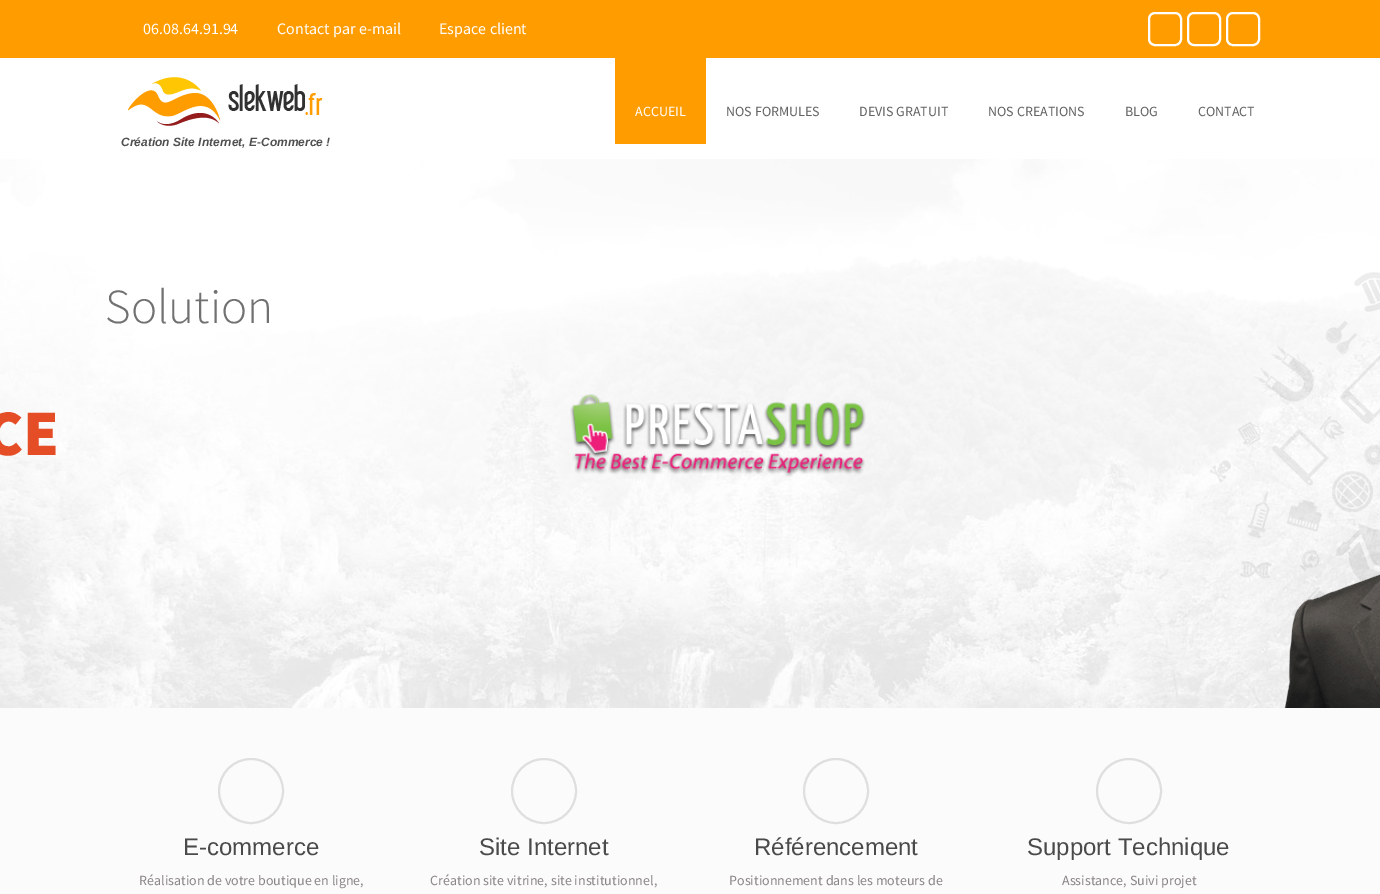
%!PS-Adobe-3.0
%%BoundingBox: 0 0 1380 894
%%LanguageLevel: 3
%%Pages: 1
%%EndComments
%%BeginProlog
/setink { dup -16 bitshift 255 div exch dup -8 bitshift 255 and 255 div exch 255 and 255 div setrgbcolor } def
/usefont { [ exch dup neg 0 0 3 -1 roll 0 0 ] selectfont } def
/disc { newpath 0 360 arc closepath } def
/rrect { 5 dict begin { /r /h /w /y /x } { exch def } forall
  x r add y moveto x w add y 2 copy h add r arct x w add y h add x 1 index r arct
  x y h add x y r arct x y 2 copy exch w add exch r arct closepath end } def
/drawimage { 5 dict begin { /h /w /y /x /name } { exch def } forall
  gsave x y translate w h scale
  w h 8 [w 0 0 h 0 0] name (r) file false 3 colorimage grestore end } def
%%EndProlog
%%BeginSetup
<< /PageSize [1380 894] >> setpagedevice
%%EndSetup
%%Page: 1 1
0 894 translate 1 -1 scale
4 setmiterlimit
16#FFFFFF setink
0 0 1380 894 rectfill
16#FF9C00 setink
0 0 1380 58 rectfill
/SourceSansPro-Regular 16 usefont
16#FFFFFF setink
[
    [(06.08.64.91.94) 143 34]
    [(Contact par e-mail) 277 34]
    [(Espace client) 439 34]
] { aload pop moveto show } forall
2 setlinewidth
1149 13 32 32 6 rrect stroke
1188 13 32 32 6 rrect stroke
1227 13 32 32 6 rrect stroke
16#FF9C00 setink
615 58 91 86 rectfill
/SourceSansPro-Regular 14 usefont
16#FFFFFF setink
635 116 moveto (ACCUEIL) show
16#626262 setink
[
    [(NOS FORMULES) 726 116]
    [(DEVIS GRATUIT) 859 116]
    [(NOS CREATIONS) 988 116]
    [(BLOG) 1125 116]
    [(CONTACT) 1198 116]
] { aload pop moveto show } forall
(img1.raw) 128 77 195 49 drawimage
/LiberationSans-BoldItalic 12 usefont
16#505050 setink
121 146 moveto (Création Site Internet, E-Commerce !) show
(img2.raw) 0 159 1380 549 drawimage
/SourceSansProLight-Light 49 usefont
16#717171 setink
105 323 moveto (Solution) show
(img3.raw) 1209 272 171 436 drawimage
/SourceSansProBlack-Black 65 usefont
16#E44D26 setink
-15 455 moveto (CE) show
(img4.raw) 570 394 296 83 drawimage
16#FBFBFB setink
0 708 1380 186 rectfill
16#DFDFDF setink
251 791 32 disc stroke
/LiberationSans-Regular 24 usefont
16#4A4A4A setink
183 855 moveto (E-commerce) show
/SourceSansPro-Regular 14 usefont
16#8A8484 setink
139 885 moveto (Réalisation de votre boutique en ligne,) show
16#DFDFDF setink
544 791 32 disc stroke
/LiberationSans-Regular 24 usefont
16#4A4A4A setink
479 855 moveto (Site Internet) show
/SourceSansPro-Regular 14 usefont
16#8A8484 setink
430 885 moveto (Création site vitrine, site institutionnel,) show
16#DFDFDF setink
836 791 32 disc stroke
/LiberationSans-Regular 24 usefont
16#4A4A4A setink
754 855 moveto (Référencement) show
/SourceSansPro-Regular 14 usefont
16#8A8484 setink
729 885 moveto (Positionnement dans les moteurs de) show
16#DFDFDF setink
1129 791 32 disc stroke
/LiberationSans-Regular 24 usefont
16#4A4A4A setink
1027 855 moveto (Support Technique) show
/SourceSansPro-Regular 14 usefont
16#8A8484 setink
1062 885 moveto (Assistance, Suivi projet) show
showpage
%%EOF
